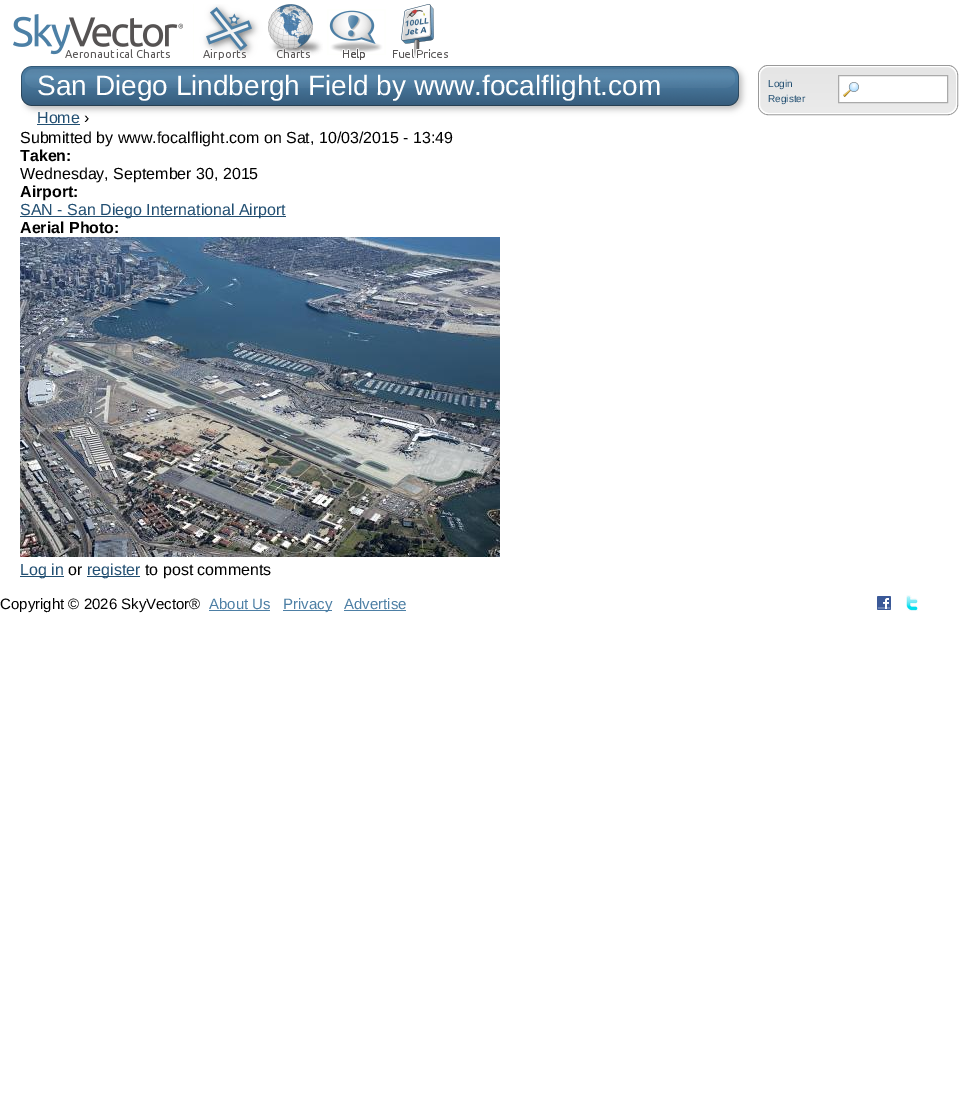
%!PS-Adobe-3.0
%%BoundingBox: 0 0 968 1093
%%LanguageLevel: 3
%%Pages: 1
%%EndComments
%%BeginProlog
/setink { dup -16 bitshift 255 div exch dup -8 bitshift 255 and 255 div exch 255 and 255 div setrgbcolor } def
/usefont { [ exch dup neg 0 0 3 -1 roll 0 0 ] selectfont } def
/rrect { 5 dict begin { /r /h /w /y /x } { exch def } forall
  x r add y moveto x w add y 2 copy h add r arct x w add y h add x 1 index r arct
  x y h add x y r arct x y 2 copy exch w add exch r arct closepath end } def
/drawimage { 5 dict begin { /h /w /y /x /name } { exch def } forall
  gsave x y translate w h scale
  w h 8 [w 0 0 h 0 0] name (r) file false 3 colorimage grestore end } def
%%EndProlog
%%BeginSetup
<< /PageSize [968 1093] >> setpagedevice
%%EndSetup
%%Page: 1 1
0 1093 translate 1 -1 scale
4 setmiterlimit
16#FFFFFF setink
0 0 968 1093 rectfill
(img1.raw) 13 4 435 56 drawimage
(img2.raw) 20 64 20 53 drawimage
(img3.raw) 40 64 710 53 drawimage
/LiberationSans-Regular 28 usefont
37 95 moveto (San Diego Lindbergh Field by www.focalflight.com) show
16#999999 setink
758.5 65.5 199 49 9.5 rrect stroke
(img4.raw) 759 67 198 47 drawimage
16#FFFFFF setink
759.5 66.5 197 47 9.5 rrect stroke
/LiberationSans-Regular 10 usefont
16#224F72 setink
768 87 moveto (Login) show
16#FFFFFF setink
839 76 108 26 rectfill
(img5.raw) 843 82 16 15 drawimage
16#AAAAAA setink
838.5 75.5 109 27 rectstroke
16#224F72 setink
768 102 moveto (Register) show
/LiberationSans-Regular 16 usefont
37 123 moveto (Home) show
37 124 43 1 rectfill
16#000000 setink
84 123 moveto (›) show
20 143 moveto (Submitted by www.focalflight.com on Sat, 10/03/2015 - 13:49) show
/LiberationSans-Bold 16 usefont
20 161 moveto (Taken:) show
/LiberationSans-Regular 16 usefont
20 179 moveto (Wednesday, September 30, 2015) show
/LiberationSans-Bold 16 usefont
20 197 moveto (Airport:) show
16#224F72 setink
20 216 266 1 rectfill
/LiberationSans-Regular 16 usefont
20 215 moveto (SAN - San Diego International Airport) show
/LiberationSans-Bold 16 usefont
16#000000 setink
20 233 moveto (Aerial Photo:) show
(img6.raw) 20 237 480 320 drawimage
16#224F72 setink
20 576 44 1 rectfill
/LiberationSans-Regular 16 usefont
20 575 moveto (Log in) show
16#000000 setink
68 575 moveto (or) show
16#224F72 setink
87 576 53 1 rectfill
87 575 moveto (register) show
16#000000 setink
145 575 moveto (to post comments) show
/LiberationSans-Regular 15 usefont
0 609 moveto (Copyright © 2026 SkyVector®) show
16#4D7FA5 setink
209 609 moveto (About Us) show
209 610 61 1 rectfill
283 610 49 1 rectfill
283 609 moveto (Privacy) show
344 609 moveto (Advertise) show
344 610 62 1 rectfill
(img7.raw) 877 596 14 14 drawimage
(img8.raw) 906 595 12 16 drawimage
showpage
%%EOF
